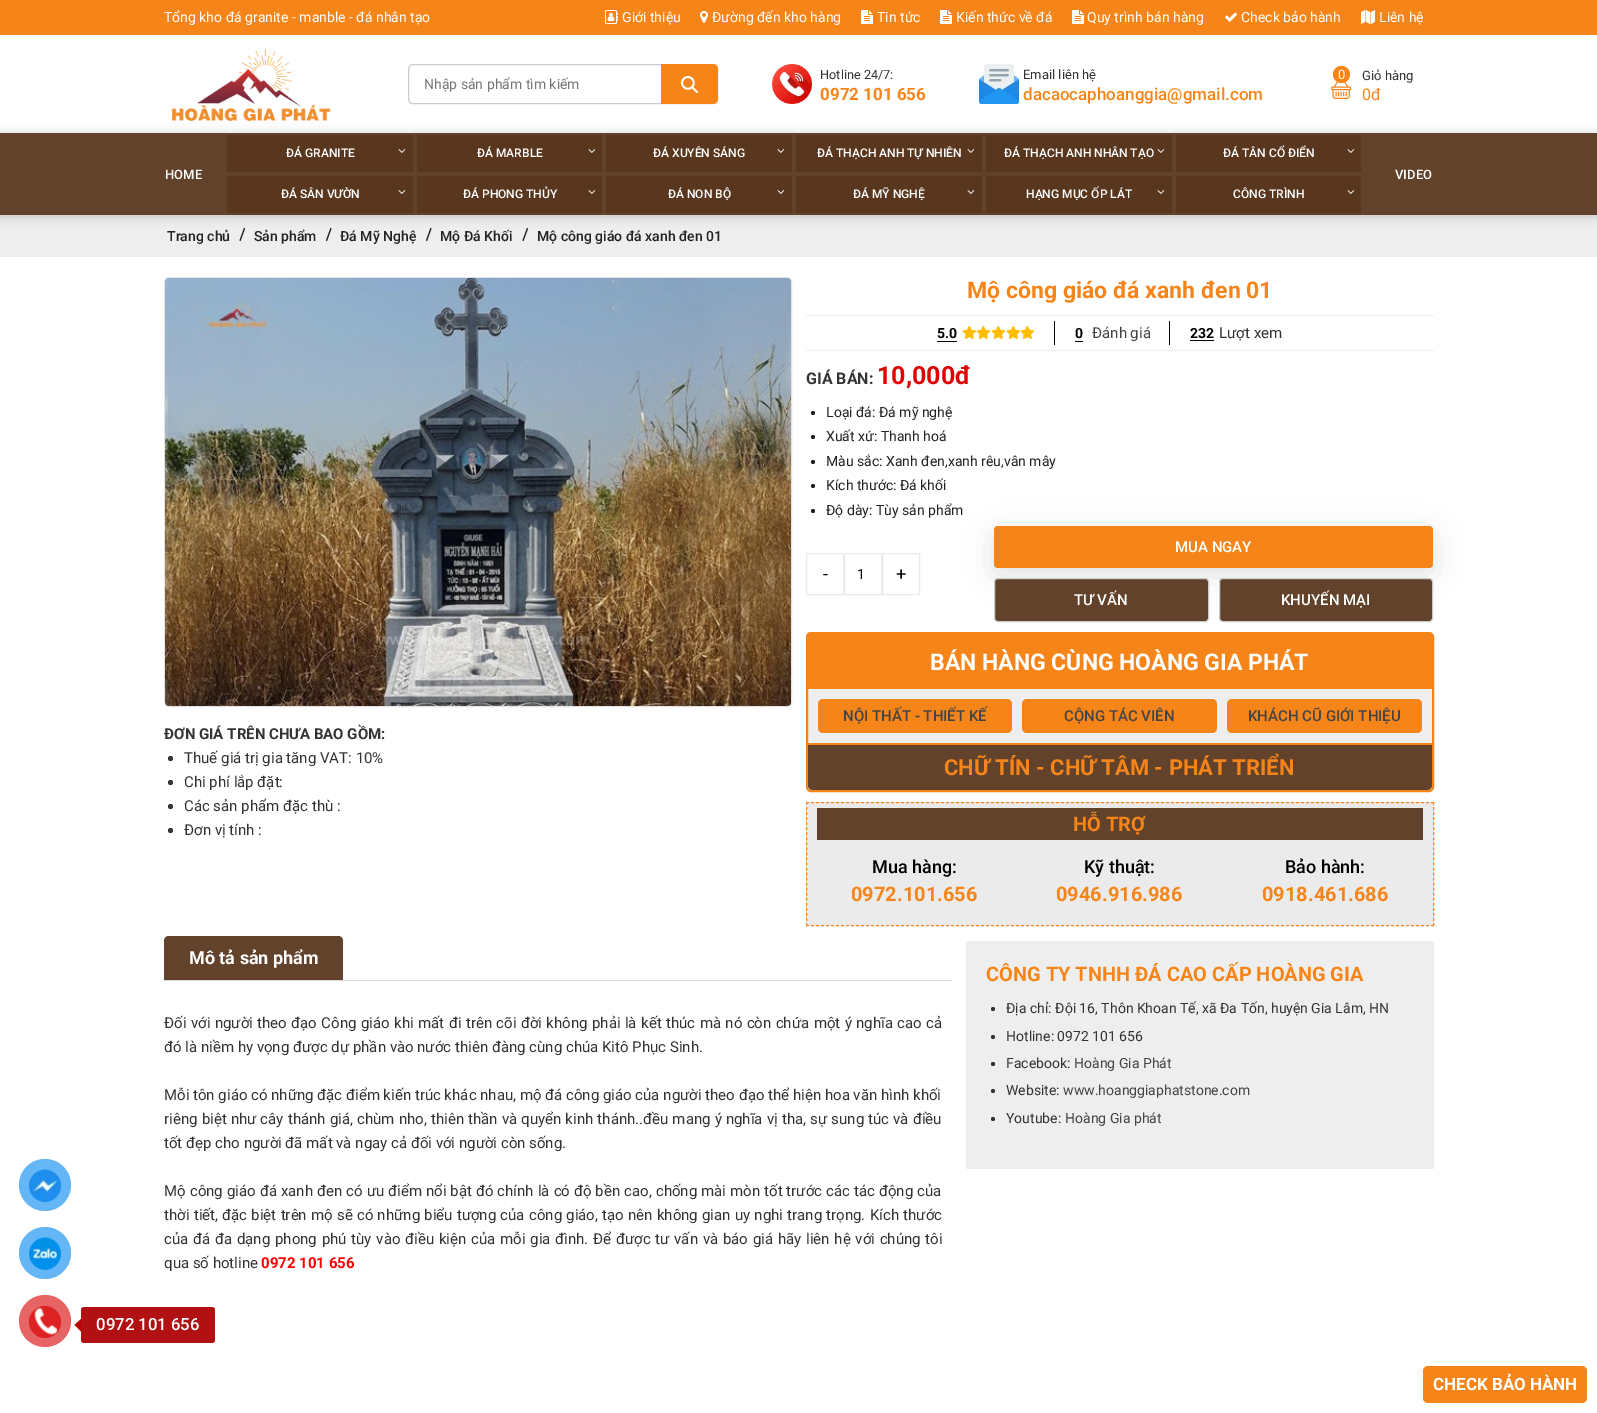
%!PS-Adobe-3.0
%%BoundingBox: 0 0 1597 1413
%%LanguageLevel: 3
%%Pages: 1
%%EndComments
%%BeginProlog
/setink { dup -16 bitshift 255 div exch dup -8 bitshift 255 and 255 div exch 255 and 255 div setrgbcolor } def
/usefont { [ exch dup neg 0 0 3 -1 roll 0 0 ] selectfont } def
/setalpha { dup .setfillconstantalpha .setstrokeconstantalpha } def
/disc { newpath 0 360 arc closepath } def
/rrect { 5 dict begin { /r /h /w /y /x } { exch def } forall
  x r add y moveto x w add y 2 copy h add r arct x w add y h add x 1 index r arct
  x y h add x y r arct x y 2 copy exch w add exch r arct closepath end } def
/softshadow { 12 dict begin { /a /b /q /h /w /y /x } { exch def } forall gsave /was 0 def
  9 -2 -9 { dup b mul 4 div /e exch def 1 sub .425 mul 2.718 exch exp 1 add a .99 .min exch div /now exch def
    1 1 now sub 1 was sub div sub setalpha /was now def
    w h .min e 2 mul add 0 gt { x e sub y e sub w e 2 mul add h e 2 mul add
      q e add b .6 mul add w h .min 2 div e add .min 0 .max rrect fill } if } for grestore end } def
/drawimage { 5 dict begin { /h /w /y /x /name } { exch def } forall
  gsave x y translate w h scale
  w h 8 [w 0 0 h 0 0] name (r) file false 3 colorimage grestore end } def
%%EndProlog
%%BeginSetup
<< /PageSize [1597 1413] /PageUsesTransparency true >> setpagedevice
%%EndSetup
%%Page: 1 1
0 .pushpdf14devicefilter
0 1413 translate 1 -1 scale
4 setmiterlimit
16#FFFFFF setink
0 0 1597 1413 rectfill
16#F68519 setink
0 0 1597 35 rectfill
/Roboto-Regular 14 usefont
16#FFFFFF setink
164 22 moveto (Tổng kho đá granite - manble - đá nhân tạo) show
(img1.raw) 605 10 13 14 drawimage
622 22 moveto (Giới thiệu) show
(img2.raw) 700 11 8 12 drawimage
712 22 moveto (Đường đến kho hàng) show
(img3.raw) 861 10 12 14 drawimage
877 22 moveto (Tin tức) show
(img3.raw) 940 10 12 14 drawimage
956 22 moveto (Kiến thức về đá) show
(img3.raw) 1072 10 12 14 drawimage
1087 22 moveto (Quy trình bán hàng) show
(img4.raw) 1225 12 12 10 drawimage
1241 22 moveto (Check bảo hành) show
(img5.raw) 1361 10 14 14 drawimage
1379 22 moveto (Liên hệ) show
(img6.raw) 171 49 160 72 drawimage
16#CCCCCC setink
408.5 64.5 309 39 4.5 rrect stroke
16#757575 setink
424 89 moveto (Nhập sản phẩm tìm kiếm) show
16#F68519 setink
661 64 moveto 713 64 lineto 716 64 718 66 718 69 curveto 718 99 lineto 718 102 716 104 713 104 curveto 661 104 lineto closepath fill
(img7.raw) 681 76 17 17 drawimage
(img8.raw) 772 64 40 40 drawimage
/Roboto-Regular 12.75 usefont
16#333333 setink
820 79 moveto (Hotline 24/7:) show
/Roboto-Bold 17 usefont
16#F68519 setink
820 100 moveto (0972 101 656) show
(img9.raw) 979 64 40 40 drawimage
/Roboto-Regular 13 usefont
16#333333 setink
1023 79 moveto (Email liên hệ) show
/Roboto-Medium 17 usefont
16#F68519 setink
1023 100 moveto (dacaocaphoanggia@gmail.com) show
(img10.raw) 1331 81 21 18 drawimage
1341.5 74.5 8.5 disc fill
/Roboto-Regular 13 usefont
16#FFFFFF setink
1338 79 moveto (0) show
16#333333 setink
1362 80 moveto (Giỏ hàng) show
/Roboto-Regular 16 usefont
16#F68519 setink
1362 100 moveto (0đ) show
16#EEEEEE setink
0 215 1597 42 rectfill
16#222222 setink
244 228 moveto 245 228.5 lineto 240.5 241 lineto 239.5 240.5 lineto closepath fill
330.5 228 moveto 331.5 228.5 lineto 327 241 lineto 326 240.5 lineto closepath fill
430.5 228 moveto 431.5 228.5 lineto 427 241 lineto 426 240.5 lineto closepath fill
527 228 moveto 528 228.5 lineto 523.5 241 lineto 522.5 240.5 lineto closepath fill
16#000000 setink
0 134 1597 82 0 5 0.2 softshadow
16#62422B setink
0 133 1597 82 rectfill
/Roboto-Medium 13 usefont
16#FFFFFF setink
165 179 moveto (HOME) show
16#59371E setink
227 135 186 37 rectfill
/Roboto-Medium 12 usefont
16#FFFFFF setink
286 157 moveto (ĐÁ GRANITE) show
(img11.raw) 398 149 8 4 drawimage
16#59371E setink
417 135 185 37 rectfill
16#FFFFFF setink
477 157 moveto (ĐÁ MARBLE) show
(img11.raw) 588 149 8 4 drawimage
16#59371E setink
606 135 186 37 rectfill
16#FFFFFF setink
653 157 moveto (ĐÁ XUYÊN SÁNG) show
(img11.raw) 777 149 8 4 drawimage
16#59371E setink
796 135 186 37 rectfill
16#FFFFFF setink
817 157 moveto (ĐÁ THẠCH ANH TỰ NHIÊN) show
(img11.raw) 967 149 8 4 drawimage
16#59371E setink
986 135 186 37 rectfill
16#FFFFFF setink
1004 157 moveto (ĐÁ THẠCH ANH NHÂN TẠO) show
(img11.raw) 1157 149 8 4 drawimage
16#59371E setink
1176 135 185 37 rectfill
16#FFFFFF setink
1223 157 moveto (ĐÁ TÂN CỔ ĐIỂN) show
(img11.raw) 1347 149 8 4 drawimage
16#59371E setink
227 176 186 37 rectfill
16#FFFFFF setink
281 198 moveto (ĐÁ SÂN VƯỜN) show
(img11.raw) 398 190 8 4 drawimage
16#59371E setink
417 176 185 37 rectfill
16#FFFFFF setink
463 198 moveto (ĐÁ PHONG THỦY) show
(img11.raw) 588 190 8 4 drawimage
16#59371E setink
606 176 186 37 rectfill
16#FFFFFF setink
668 198 moveto (ĐÁ NON BỘ) show
(img11.raw) 777 190 8 4 drawimage
16#59371E setink
796 176 186 37 rectfill
16#FFFFFF setink
853 198 moveto (ĐÁ MỸ NGHỆ) show
(img11.raw) 967 190 8 4 drawimage
16#59371E setink
986 176 186 37 rectfill
16#FFFFFF setink
1026 198 moveto (HẠNG MỤC ỐP LÁT) show
(img11.raw) 1157 190 8 4 drawimage
16#59371E setink
1176 176 185 37 rectfill
16#FFFFFF setink
1233 198 moveto (CÔNG TRÌNH) show
(img11.raw) 1347 190 8 4 drawimage
/Roboto-Medium 13 usefont
1395 179 moveto (VIDEO) show
/Roboto-Medium 14 usefont
16#222222 setink
[
    [(Trang chủ) 167 241]
    [(Sản phẩm) 254 241]
    [(Đá Mỹ Nghệ) 340 241]
    [(Mộ Đá Khối) 440 241]
    [(Mộ công giáo đá xanh đen 01) 537 241]
] { aload pop moveto show } forall
16#E3E3E3 setink
164.5 277.5 627 429 4.5 rrect stroke
(img12.raw) 165 278 626 428 drawimage
/Roboto-Bold 15 usefont
16#333333 setink
164 739 moveto (ĐƠN GIÁ TRÊN CHƯA BAO GỒM:) show
16#353535 setink
170.5 758.5 2.5 disc fill
/Roboto-Regular 15 usefont
16#333333 setink
184 763 moveto (Thuế giá trị gia tăng VAT: 10%) show
16#353535 setink
170.5 782.5 2.5 disc fill
16#333333 setink
184 787 moveto (Chi phí lắp đặt:) show
16#353535 setink
170.5 806.5 2.5 disc fill
16#333333 setink
184 811 moveto (Các sản phẩm đặc thù :) show
16#353535 setink
170.5 830.5 2.5 disc fill
16#333333 setink
184 835 moveto (Đơn vị tính :) show
/Roboto-Bold 23 usefont
16#F68519 setink
967 298 moveto (Mộ công giáo đá xanh đen 01) show
16#EEEEEE setink
806 315 628 1 rectfill
806 350 628 1 rectfill
/Roboto-Bold 14 usefont
16#000000 setink
937 338 moveto (5.0) show
937 341 20 1 rectfill
(img13.raw) 962 326 14 13 drawimage
(img13.raw) 976 326 14 13 drawimage
(img13.raw) 991 326 14 13 drawimage
(img13.raw) 1006 326 14 13 drawimage
(img13.raw) 1020 326 14 13 drawimage
1054 321 1 24 rectfill
1075 338 moveto (0) show
1075 341 8 1 rectfill
/Roboto-Regular 15 usefont
16#444444 setink
1092 338 moveto (Đánh giá) show
16#000000 setink
1169 321 1 24 rectfill
/Roboto-Bold 14 usefont
1190 338 moveto (232) show
1190 340 24 1 rectfill
/Roboto-Regular 15 usefont
16#333333 setink
1219 338 moveto (Lượt xem) show
/Roboto-Bold 16 usefont
806 384 moveto (GIÁ BÁN:) show
/Roboto-Bold 25 usefont
16#DF0202 setink
877 384 moveto (10,000đ) show
16#222222 setink
813 413 2 disc fill
/Roboto-Regular 14 usefont
826 417 moveto (Loại đá: Đá mỹ nghệ) show
813 437 2 disc fill
826 441 moveto (Xuất xứ: Thanh hoá) show
813 462 2 disc fill
826 466 moveto (Màu sắc: Xanh đen,xanh rêu,vân mây) show
813 486 2 disc fill
826 490 moveto (Kích thước: Đá khối) show
813 511 2 disc fill
16#64646F setink
994 533 439 42 4 14.5 0.2 softshadow
16#222222 setink
826 515 moveto (Độ dày: Tùy sản phẩm) show
16#EBEAEA setink
806.5 553.5 37 41 rectstroke
/Roboto-Regular 18 usefont
16#000000 setink
823 580 moveto (-) show
16#EBEAEA setink
844.5 553.5 37 41 rectstroke
/Roboto-Regular 14 usefont
16#000000 setink
857 579 moveto (1) show
16#EBEAEA setink
882.5 553.5 37 41 rectstroke
/Roboto-Regular 18 usefont
16#000000 setink
896 580 moveto (+) show
16#F68519 setink
994 526 439 42 4 rrect fill
/Roboto-Medium 15 usefont
16#FFFFFF setink
1175 552 moveto (MUA NGAY) show
16#62422B setink
994.5 578.5 214 43 3.5 rrect gsave fill grestore
16#CCCCCC setink
stroke
16#FFFFFF setink
1074 605 moveto (TƯ VẤN) show
16#62422B setink
1219.5 578.5 213 43 3.5 rrect gsave fill grestore
16#CCCCCC setink
stroke
16#FFFFFF setink
1281 605 moveto (KHUYẾN MẠI) show
16#EEEEEE setink
807 633 626 158 4 rrect gsave fill grestore
16#F68519 setink
2 setlinewidth
stroke
808 634 624 55 rectfill
/Roboto-Bold 23 usefont
16#FFFFFF setink
930 670 moveto (BÁN HÀNG CÙNG HOÀNG GIA PHÁT) show
16#F68519 setink
818 699 194 34 5 rrect fill
/Roboto-Medium 15 usefont
16#444444 setink
843 721 moveto (NỘI THẤT - THIẾT KẾ) show
16#F68519 setink
1022 699 195 34 5 rrect fill
16#444444 setink
1064 721 moveto (CỘNG TÁC VIÊN) show
16#F68519 setink
1227 699 195 34 5 rrect fill
16#444444 setink
1248 721 moveto (KHÁCH CŨ GIỚI THIỆU) show
16#62422B setink
808 743 moveto 1432 743 lineto 1432 785 lineto 1432 788 1430 790 1427 790 curveto 813 790 lineto 810 790 808 788 808 785 curveto closepath fill
16#F68519 setink
808 743 624 2 rectfill
/Roboto-Bold 22 usefont
944 775 moveto (CHỮ TÍN - CHỮ TÂM - PHÁT TRIỂN) show
16#EBEBEB setink
806 802 628 124 rectfill
16#F68519 setink
1 setlinewidth
[3 2] 0 setdash
806 802.5 moveto 1434 802.5 lineto stroke
[3 2.04] 0 setdash
1433.5 802 moveto 1433.5 926 lineto stroke
[3 2] 0 setdash
806 925.5 moveto 1434 925.5 lineto stroke
[3 2.04] 0 setdash
806.5 802 moveto 806.5 926 lineto stroke
16#62422B setink
817 808 606 32 rectfill
/Roboto-Bold 20 usefont
16#F68519 setink
1073 831 moveto (HỖ TRỢ) show
/Roboto-Medium 18 usefont
16#000000 setink
872 873 moveto (Mua hàng:) show
/Roboto-Bold 20 usefont
16#F68519 setink
851 901 moveto (0972.101.656) show
/Roboto-Medium 18 usefont
16#000000 setink
1084 873 moveto (Kỹ thuật:) show
/Roboto-Bold 20 usefont
16#F68519 setink
1056 901 moveto (0946.916.986) show
/Roboto-Medium 18 usefont
16#000000 setink
1285 873 moveto (Bảo hành:) show
/Roboto-Bold 20 usefont
16#F68519 setink
1262 901 moveto (0918.461.686) show
16#D9D9D9 setink
164 980 788 1 rectfill
16#62422B setink
169 936 moveto 338 936 lineto 341 936 343 938 343 941 curveto 343 980 lineto 164 980 lineto 164 941 lineto 164 938 166 936 169 936 curveto closepath fill
/Roboto-Bold 18 usefont
16#FFFFFF setink
189 964 moveto (Mô tả sản phẩm) show
/Roboto-Regular 15 usefont
16#333333 setink
164 1028 moveto 0.7 0 32 (Đối với người theo đạo Công giáo khi mất đi trên cõi đời không phải là kết thúc mà nó còn chứa một ý nghĩa cao cả) widthshow
164 1052 moveto (đó là niềm hy vọng được dự phần vào nước thiên đàng cùng chúa Kitô Phục Sinh.) show
164 1100 moveto (Mỗi tôn giáo có những đặc điểm kiến trúc khác nhau, mộ đá công giáo của người theo đạo thể hiện hoa văn hình khối) show
164 1124 moveto 0.4 0 32 (riêng biệt như cây thánh giá, chùm nho, thiên thần và quyển kinh thánh..đều mang ý nghĩa vị tha, sự sung túc và điều) widthshow
164 1148 moveto (tốt đẹp cho người đã mất và ngay cả đối với người còn sống.) show
164 1196 moveto 0.3 0 32 (Mộ công giáo đá xanh đen có ưu điểm nổi bật đó chính là có độ bền cao, chống mài mòn tốt trước các tác động của) widthshow
164 1220 moveto 0.5 0 32 (thời tiết, đặc biệt trên mộ sẽ có những biểu tượng của công giáo, tạo nên không gian uy nghi trang trọng. Kích thước) widthshow
164 1244 moveto 1.05 0 32 (của đá đa dạng phong phú tùy vào điều kiện của mỗi gia đình. Để được tư vấn và báo giá hãy liên hệ với chúng tôi) widthshow
164 1268 moveto (qua số hotline) show
/Roboto-Bold 15 usefont
16#FF0000 setink
261 1268 moveto (0972 101 656) show
16#EEEEEE setink
966 941 468 228 rectfill
/Roboto-Bold 20 usefont
16#F68519 setink
986 981 moveto (CÔNG TY TNHH ĐÁ CAO CẤP HOÀNG GIA) show
16#333333 setink
993 1009 2 disc fill
/Roboto-Regular 14 usefont
1006 1013 moveto (Địa chỉ: Đội 16, Thôn Khoan Tế, xã Đa Tốn, huyện Gia Lâm, HN) show
993 1037 2 disc fill
1006 1041 moveto (Hotline: 0972 101 656) show
993 1064 2 disc fill
1006 1068 moveto (Facebook:) show
16#444444 setink
1074 1068 moveto (Hoàng Gia Phát) show
16#333333 setink
993 1091 2 disc fill
1006 1095 moveto (Website:) show
16#444444 setink
1063 1095 moveto (www.hoanggiaphatstone.com) show
16#333333 setink
993 1119 2 disc fill
1006 1123 moveto (Youtube:) show
16#444444 setink
1065 1123 moveto (Hoàng Gia phát) show
16#64B6F7 setink
45 1185 26 disc fill
16#2196F3 setink
45 1186 16 disc fill
(img14.raw) 29 1169 32 33 drawimage
16#64B6F7 setink
45 1253 26 disc fill
16#2196F3 setink
45 1254 16 disc fill
(img15.raw) 29 1237 32 33 drawimage
16#E76465 setink
45 1321 26 disc fill
16#DD2223 setink
45 1322 16 disc fill
(img16.raw) 34 1307 24 28 drawimage
16#B11112 setink
81 1307 134 36 3 rrect fill
16#BA0000 setink
81 1319 moveto 81 1331.5 lineto 74.5 1325 lineto closepath fill
/Roboto-Medium 16.75 usefont
16#FFFFFF setink
96 1330 moveto (0972 101 656) show
16#F68519 setink
1423 1366 164 37 5 rrect fill
/Roboto-Bold 17 usefont
16#FFFFFF setink
1433 1390 moveto (CHECK BẢO HÀNH) show
.poppdf14devicefilter showpage
%%EOF
